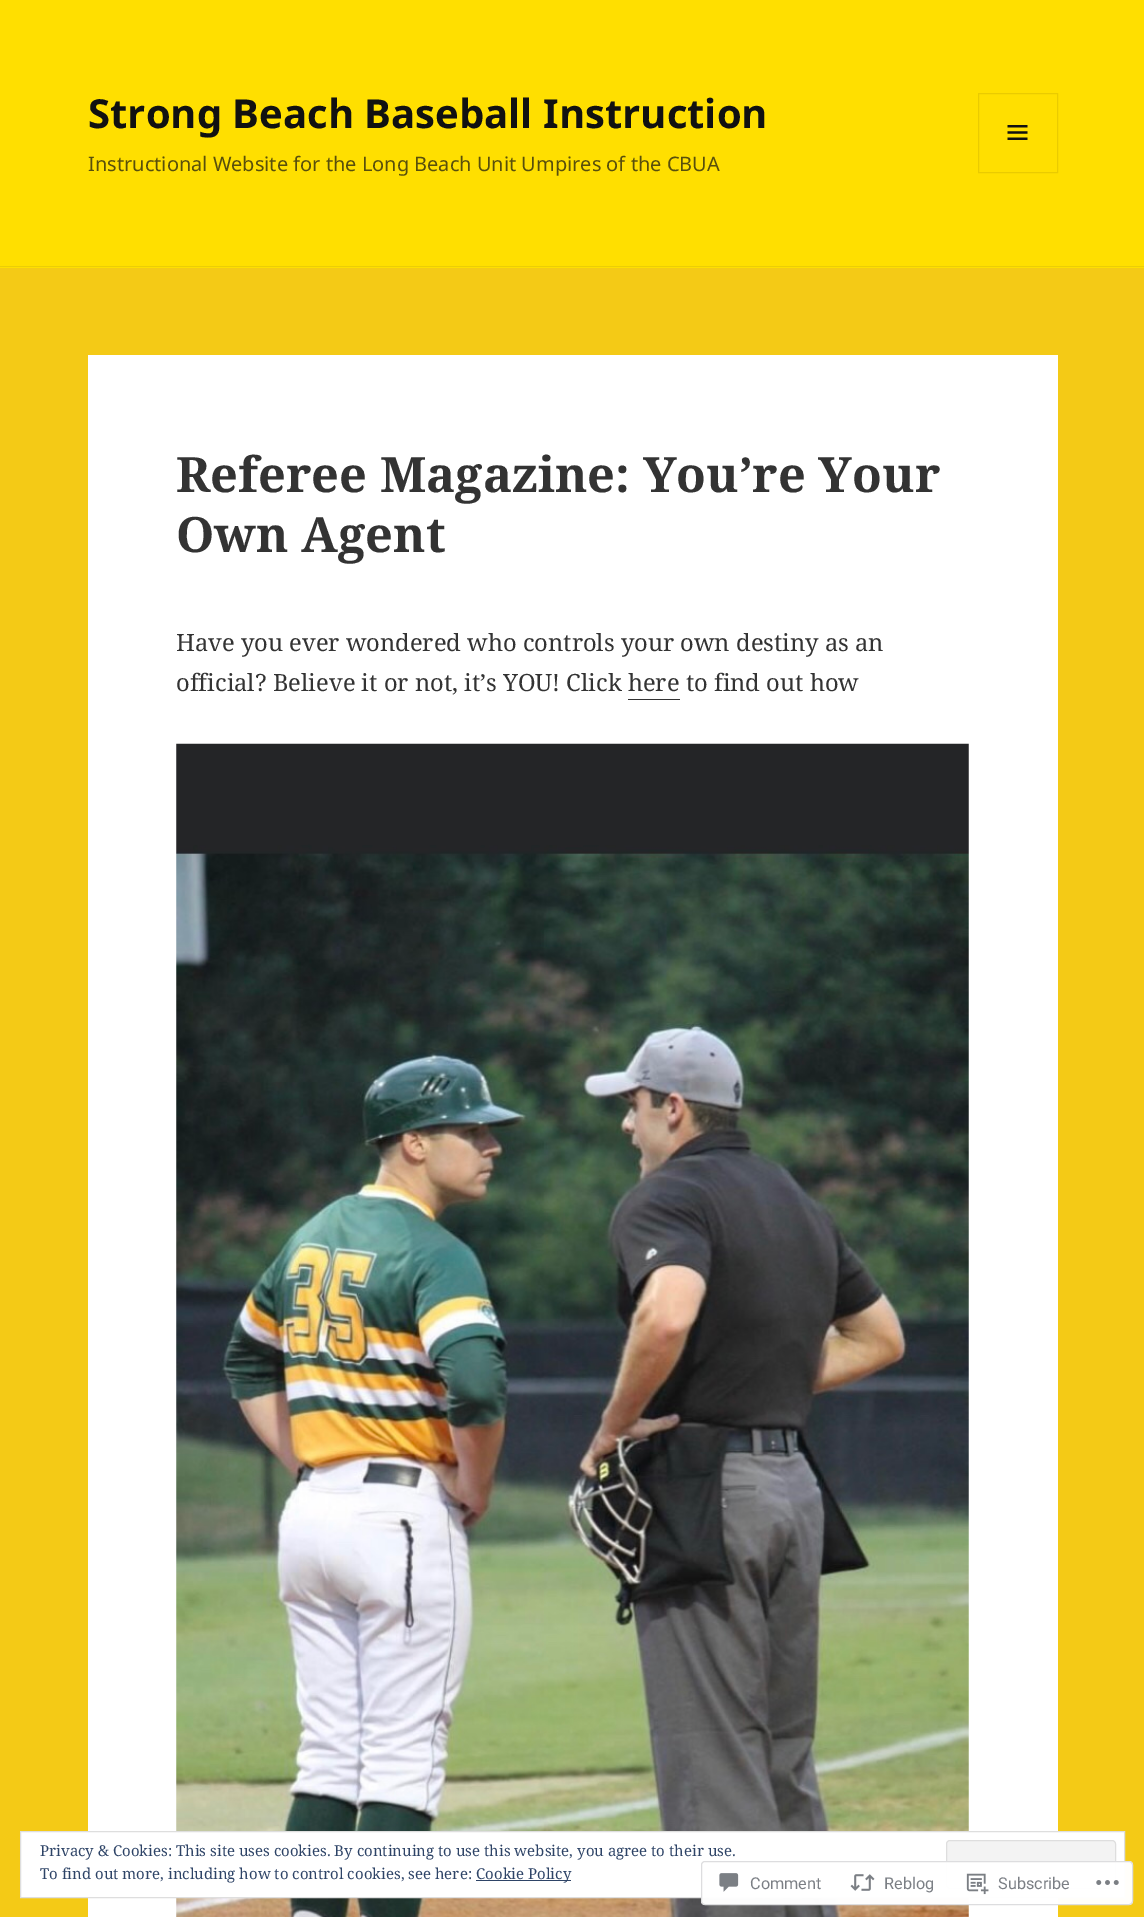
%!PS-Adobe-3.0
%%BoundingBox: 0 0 1144 1917
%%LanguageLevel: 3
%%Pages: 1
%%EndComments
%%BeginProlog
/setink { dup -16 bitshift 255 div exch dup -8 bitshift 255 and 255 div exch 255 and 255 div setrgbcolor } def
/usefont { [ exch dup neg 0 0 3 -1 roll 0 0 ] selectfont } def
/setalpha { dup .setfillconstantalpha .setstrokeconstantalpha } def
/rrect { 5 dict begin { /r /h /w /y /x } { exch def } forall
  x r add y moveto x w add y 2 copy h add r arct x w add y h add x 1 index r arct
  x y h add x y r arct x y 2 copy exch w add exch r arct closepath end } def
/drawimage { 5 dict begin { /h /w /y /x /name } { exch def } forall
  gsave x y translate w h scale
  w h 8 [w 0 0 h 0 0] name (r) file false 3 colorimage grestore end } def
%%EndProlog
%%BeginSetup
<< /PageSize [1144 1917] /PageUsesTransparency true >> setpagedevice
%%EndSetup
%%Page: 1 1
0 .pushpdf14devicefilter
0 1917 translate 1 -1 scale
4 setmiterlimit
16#F4CA16 setink
0 0 1144 1917 rectfill
16#FFDF00 setink
0 0 1144 268 rectfill
16#EBCE05 setink
0 266 1144 1 rectfill
/NotoSans-Bold 40 usefont
16#111111 setink
88 128 moveto (Strong Beach Baseball Instruction) show
16#EACB00 setink
978.5 93.5 79 79 rectstroke
(img1.raw) 1007 125 21 15 drawimage
/NotoSans-Regular 20 usefont
16#584F0C setink
88 171 moveto (Instructional Website for the Long Beach Unit Umpires of the CBUA) show
16#FFFFFF setink
88 355 970 1562 rectfill
/NotoSerif-Bold 48.75 usefont
16#333333 setink
176 492 moveto (Referee Magazine: You’re Your) show
176 552 moveto (Own Agent) show
/NotoSerif-Regular 23.75 usefont
176 651 moveto (Have you ever wondered who controls your own destiny as an) show
176 691 moveto (official? Believe it or not, it’s YOU! Click here to find out how) show
628 699 52 1 rectfill
(img2.raw) 176 743 793 1174 drawimage
16#FFFFFF setink
20.5 1831.5 moveto 1124.5 1831.5 lineto 1124.5 1897.5 lineto 20.5 1897.5 lineto closepath gsave fill grestore
16#DEDEDE setink
stroke
/NotoSerif-Regular 15 usefont
16#2E4467 setink
40 1856 moveto (Privacy & Cookies: This site uses cookies. By continuing to use this website, you agree to their use.) show
16#F3F3F3 setink
946.5 1840.5 169 48 3.5 rrect gsave fill grestore
16#DEDEDE setink
stroke
16#2E4467 setink
40 1879 moveto (To find out more, including how to control cookies, see here:) show
476 1880 95 1 rectfill
476 1879 moveto (Cookie Policy) show
0.98 setalpha
16#FFFFFF setink
701 1861 432 44 4 rrect fill
16#DCDCDE setink
701.5 1861.5 431 43 3.5 rrect stroke
1 setalpha
(img3.raw) 719 1873 20 19 drawimage
/Roboto-Regular 16.25 usefont
16#7B7F85 setink
750 1889 moveto (Comment) show
(img4.raw) 850 1874 25 17 drawimage
884 1889 moveto (Reblog) show
(img5.raw) 966 1873 23 22 drawimage
998 1889 moveto (Subscribe) show
(img6.raw) 1096 1880 23 5 drawimage
.poppdf14devicefilter showpage
%%EOF
